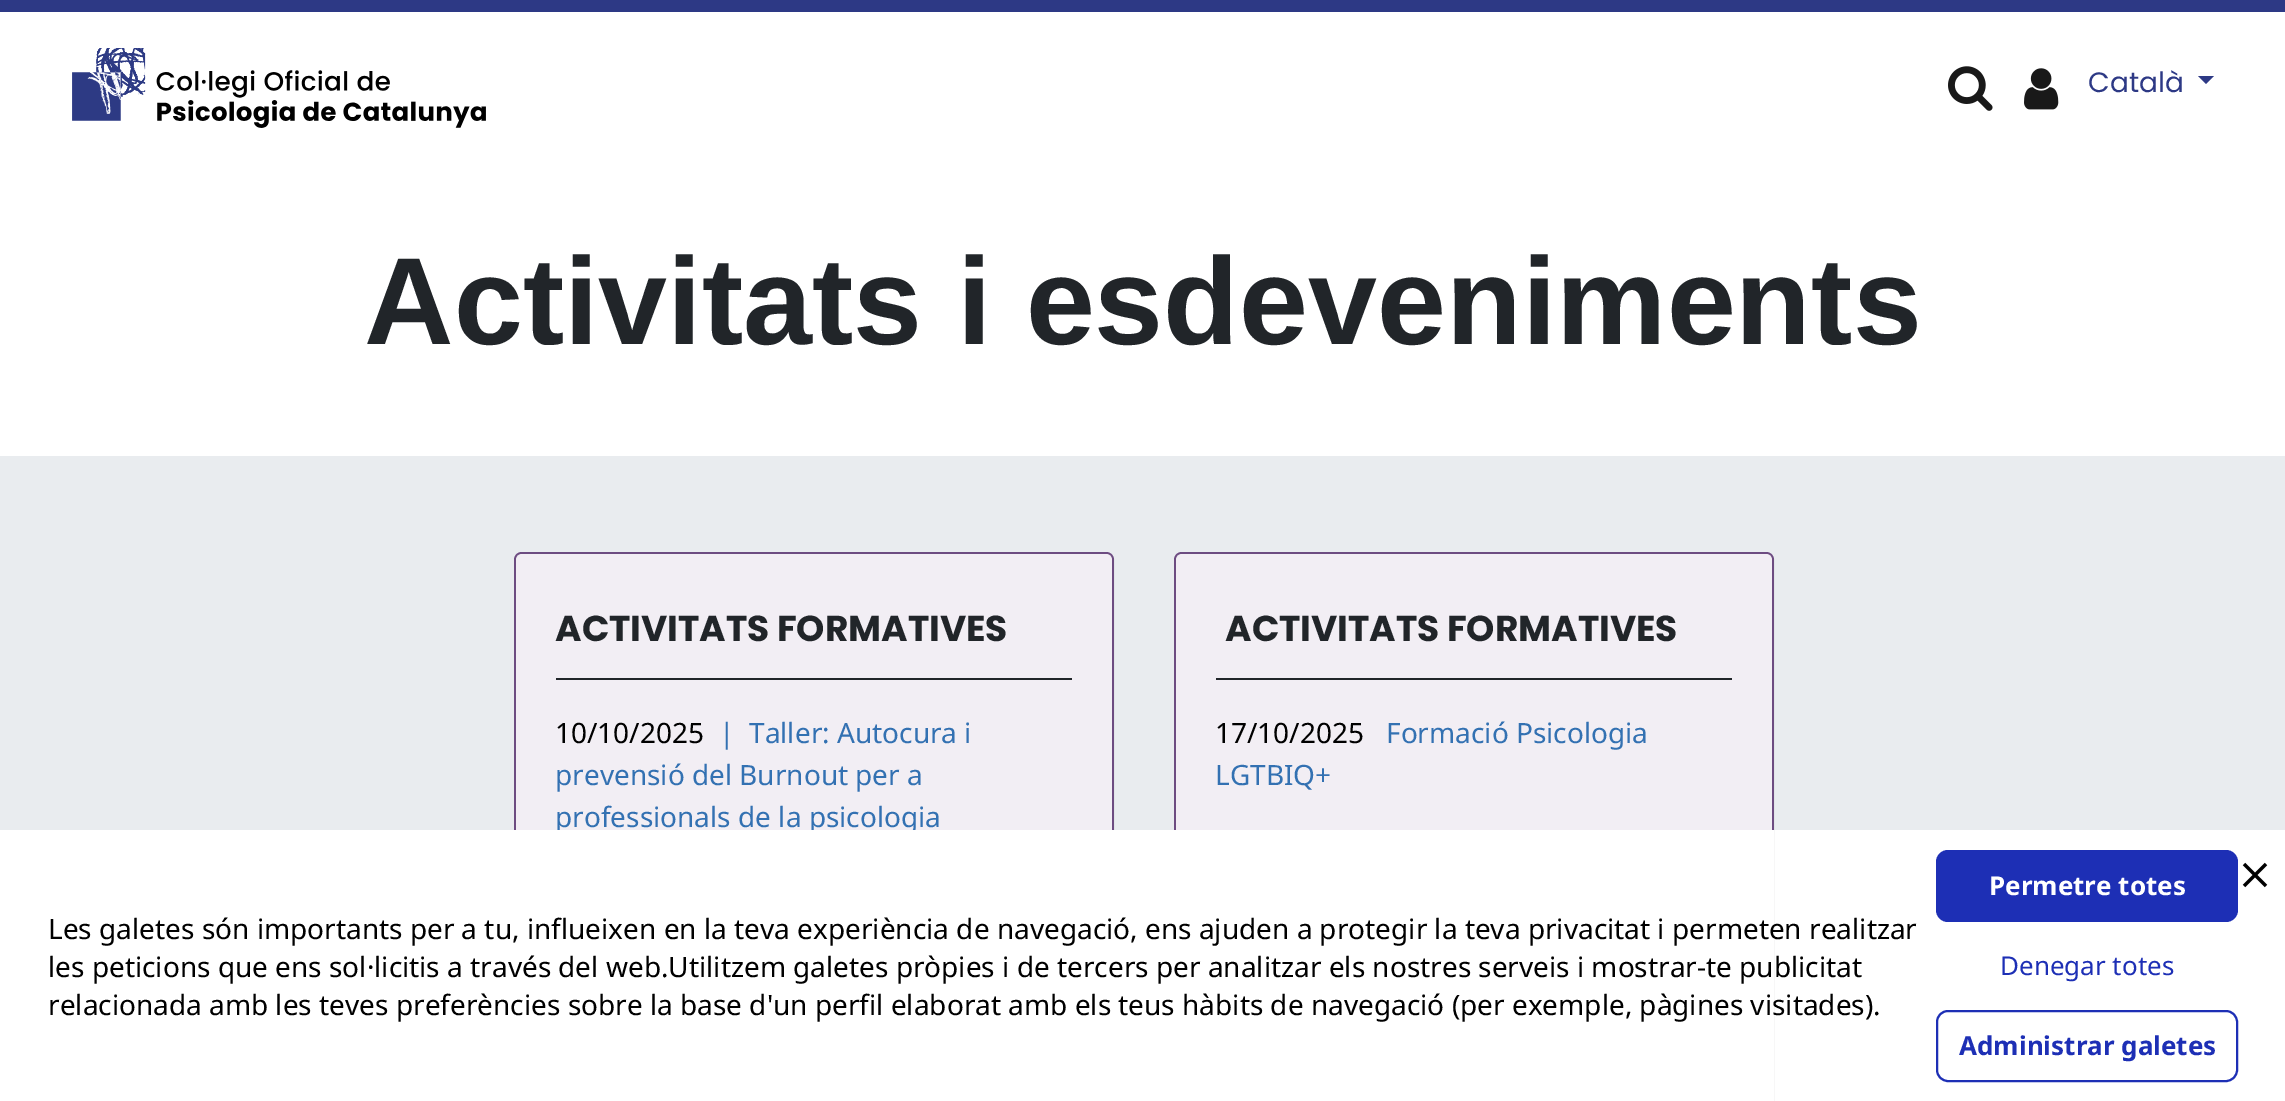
%!PS-Adobe-3.0
%%BoundingBox: 0 0 2285 1101
%%LanguageLevel: 3
%%Pages: 1
%%EndComments
%%BeginProlog
/setink { dup -16 bitshift 255 div exch dup -8 bitshift 255 and 255 div exch 255 and 255 div setrgbcolor } def
/usefont { [ exch dup neg 0 0 3 -1 roll 0 0 ] selectfont } def
/setalpha { dup .setfillconstantalpha .setstrokeconstantalpha } def
/rrect { 5 dict begin { /r /h /w /y /x } { exch def } forall
  x r add y moveto x w add y 2 copy h add r arct x w add y h add x 1 index r arct
  x y h add x y r arct x y 2 copy exch w add exch r arct closepath end } def
/drawimage { 5 dict begin { /h /w /y /x /name } { exch def } forall
  gsave x y translate w h scale
  w h 8 [w 0 0 h 0 0] name (r) file false 3 colorimage grestore end } def
%%EndProlog
%%BeginSetup
<< /PageSize [2285 1101] /PageUsesTransparency true >> setpagedevice
%%EndSetup
%%Page: 1 1
0 .pushpdf14devicefilter
0 1101 translate 1 -1 scale
4 setmiterlimit
16#FFFFFF setink
0 0 2285 1101 rectfill
16#2D3985 setink
0 0 2285 12 rectfill
(img1.raw) 72 48 414 80 drawimage
(img2.raw) 1948 66 45 45 drawimage
(img3.raw) 2024 68 35 42 drawimage
/Poppins-Regular 28 usefont
2088 92 moveto (Català) show
2198 76 moveto 2214 76 lineto 2206 84 lineto closepath fill
/LiberationSans-Bold 124 usefont
16#212529 setink
364 344 moveto (Activitats i esdeveniments) show
16#E9ECEF setink
0 456 2285 374 rectfill
16#7C5693 setink
522 552 moveto 1106 552 lineto 1110.5 552 1114 555.5 1114 560 curveto 1114 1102 lineto 514 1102 lineto 514 560 lineto 514 555.5 517.5 552 522 552 curveto closepath fill
0.12 setalpha
16#000000 setink
2 setlinewidth
515 553 598 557 7 rrect stroke
0.9 setalpha
16#FFFFFF setink
522 554 moveto 1106 554 lineto 1109.5 554 1112 556.5 1112 560 curveto 1112 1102 lineto 516 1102 lineto 516 560 lineto 516 556.5 518.5 554 522 554 curveto closepath fill
/Poppins-Bold 36 usefont
1 setalpha
16#212529 setink
555 641 moveto (ACTIVITATS FORMATIVES) show
556 678 516 2 rectfill
/NotoSans-Regular 28 usefont
16#000000 setink
555 743 moveto (10/10/2025) show
16#3371B2 setink
[
    [(|) 719 743]
    [(Taller: Autocura i) 749 743]
    [(prevensió del Burnout per a) 555 785]
    [(professionals de la psicologia) 555 827]
] { aload pop moveto show } forall
16#7C5693 setink
1182 552 moveto 1766 552 lineto 1770.5 552 1774 555.5 1774 560 curveto 1774 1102 lineto 1174 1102 lineto 1174 560 lineto 1174 555.5 1177.5 552 1182 552 curveto closepath fill
0.12 setalpha
16#000000 setink
1175 553 598 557 7 rrect stroke
0.9 setalpha
16#FFFFFF setink
1182 554 moveto 1766 554 lineto 1769.5 554 1772 556.5 1772 560 curveto 1772 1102 lineto 1176 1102 lineto 1176 560 lineto 1176 556.5 1178.5 554 1182 554 curveto closepath fill
/Poppins-Bold 36 usefont
1 setalpha
16#212529 setink
1225 641 moveto (ACTIVITATS FORMATIVES) show
1216 678 516 2 rectfill
/NotoSans-Regular 28 usefont
16#000000 setink
1215 743 moveto (17/10/2025) show
16#3371B2 setink
1386 743 moveto (Formació Psicologia) show
1215 785 moveto (LGTBIQ+) show
16#FFFFFF setink
514 830 1260 271 rectfill
16#000000 setink
[
    [(Les galetes són importants per a tu, influeixen en la teva experiència de navegació, ens ajuden a protegir la teva privacitat i permeten realitzar) 48 939]
    [(les peticions que ens sol·licitis a través del web.Utilitzem galetes pròpies i de tercers per analitzar els nostres serveis i mostrar-te publicitat) 48 977]
    [(relacionada amb les teves preferències sobre la base d'un perfil elaborat amb els teus hàbits de navegació \(per exemple, pàgines visitades\).) 48 1015]
] { aload pop moveto show } forall
16#1D2FB5 setink
1936 850 302 72 12 rrect fill
/NotoSans-Bold 26 usefont
16#FFFFFF setink
1989 895 moveto (Permetre totes) show
/NotoSans-Regular 26 usefont
16#1D2FB5 setink
2000 975 moveto (Denegar totes) show
1937 1011 300 70 11 rrect stroke
/NotoSans-Bold 26 usefont
1959 1055 moveto (Administrar galetes) show
(img4.raw) 2242 862 26 26 drawimage
.poppdf14devicefilter showpage
%%EOF
